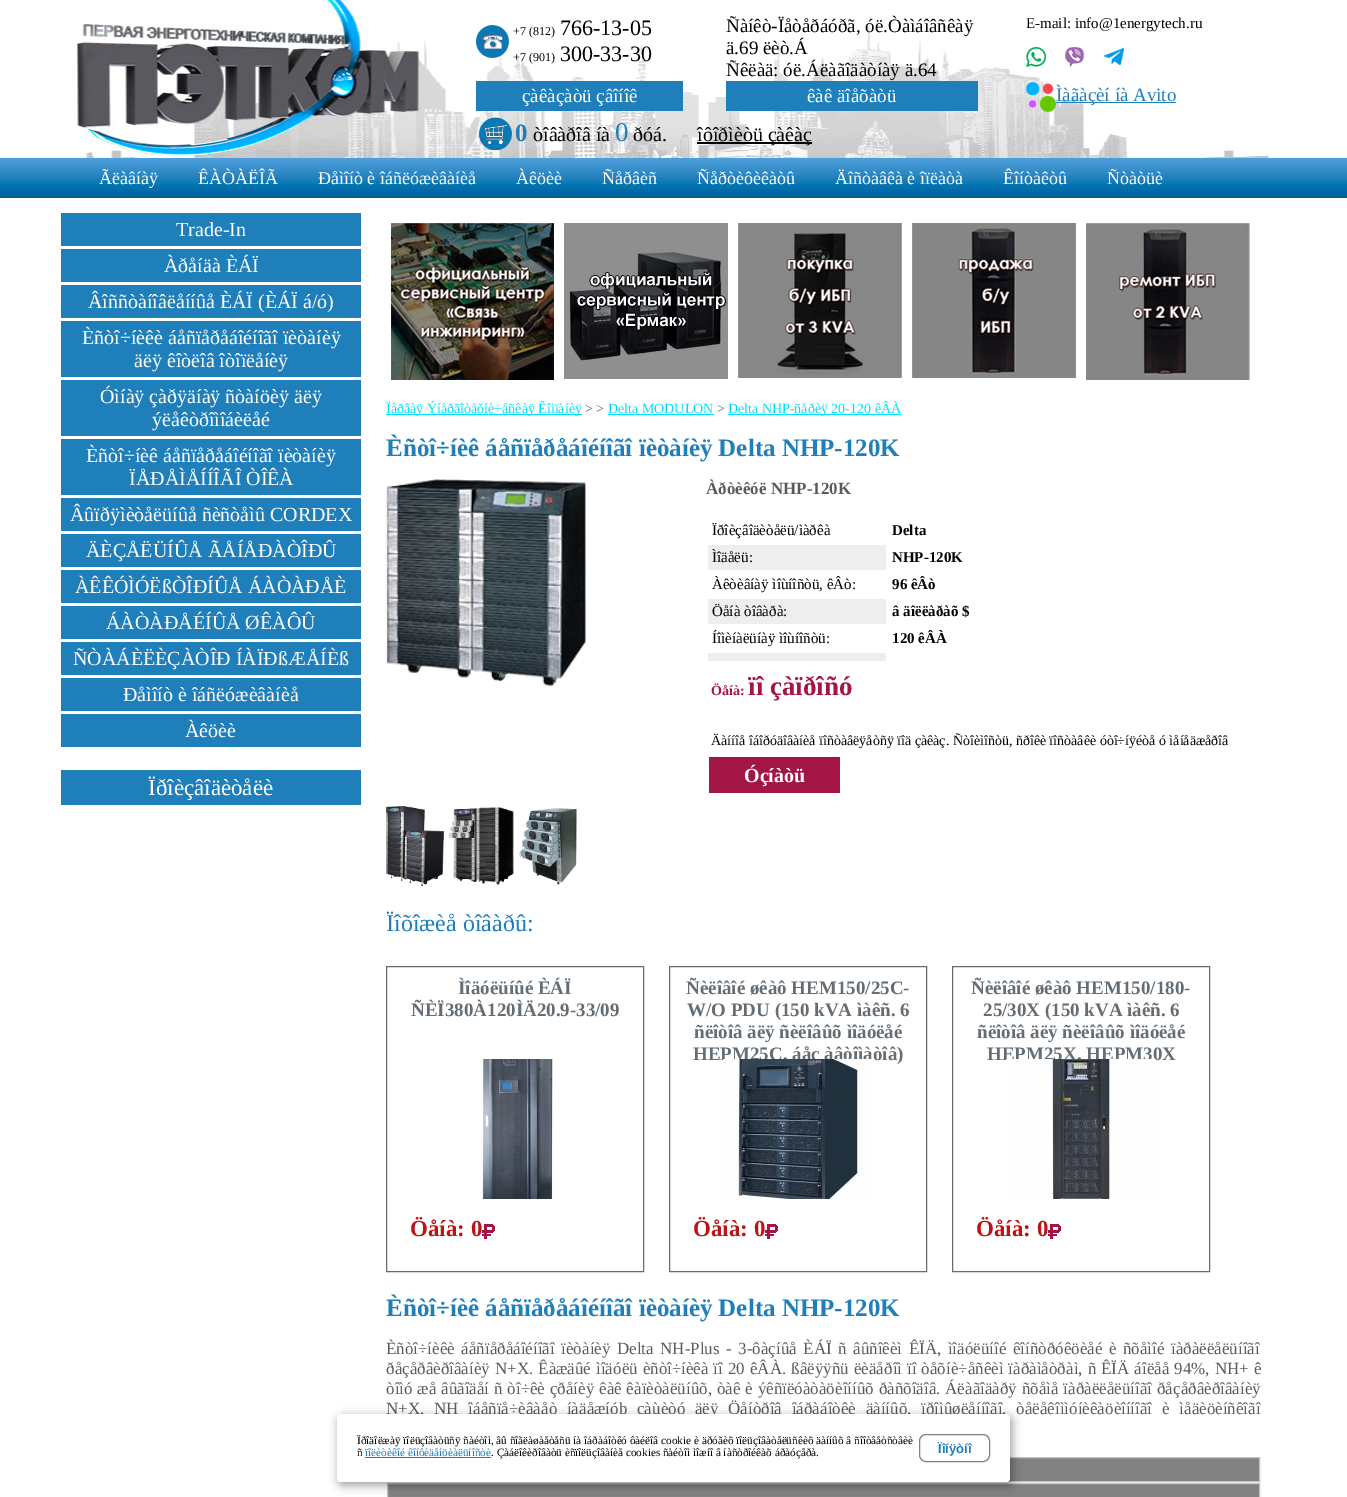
%!PS-Adobe-3.0
%%BoundingBox: 0 0 1347 1497
%%LanguageLevel: 3
%%Pages: 1
%%EndComments
%%BeginProlog
/setink { dup -16 bitshift 255 div exch dup -8 bitshift 255 and 255 div exch 255 and 255 div setrgbcolor } def
/usefont { [ exch dup neg 0 0 3 -1 roll 0 0 ] selectfont } def
/setalpha { dup .setfillconstantalpha .setstrokeconstantalpha } def
/rrect { 5 dict begin { /r /h /w /y /x } { exch def } forall
  x r add y moveto x w add y 2 copy h add r arct x w add y h add x 1 index r arct
  x y h add x y r arct x y 2 copy exch w add exch r arct closepath end } def
/softshadow { 12 dict begin { /a /b /q /h /w /y /x } { exch def } forall gsave /was 0 def
  9 -2 -9 { dup b mul 4 div /e exch def 1 sub .425 mul 2.718 exch exp 1 add a .99 .min exch div /now exch def
    1 1 now sub 1 was sub div sub setalpha /was now def
    w h .min e 2 mul add 0 gt { x e sub y e sub w e 2 mul add h e 2 mul add
      q e add b .6 mul add w h .min 2 div e add .min 0 .max rrect fill } if } for grestore end } def
/drawimage { 5 dict begin { /h /w /y /x /name } { exch def } forall
  gsave x y translate w h scale
  w h 8 [w 0 0 h 0 0] name (r) file false 3 colorimage grestore end } def
%%EndProlog
%%BeginSetup
<< /PageSize [1347 1497] /PageUsesTransparency true >> setpagedevice
%%EndSetup
%%Page: 1 1
0 .pushpdf14devicefilter
0 1497 translate 1 -1 scale
4 setmiterlimit
16#FFFFFF setink
0 0 1347 1497 rectfill
(img1.raw) 0 158 1347 40 drawimage
(img2.raw) 76 0 1193 160 drawimage
(img3.raw) 476 25 33 33 drawimage
/LiberationSerif-Regular 12 usefont
16#000000 setink
513 35 moveto (+7 \(812\)) show
/LiberationSerif-Regular 22 usefont
560 35 moveto (766-13-05) show
/LiberationSerif-Regular 12 usefont
513 61 moveto (+7 \(901\)) show
/LiberationSerif-Regular 22 usefont
560 61 moveto (300-33-30) show
/LiberationSerif-Regular 19 usefont
[
    [(Ñàíêò-Ïåòåðáóðã, óë.Òàìáîâñêàÿ) 726 32]
    [(ä.69 ëèò.Á) 726 54]
    [(Ñêëàä: óë.Áëàãîäàòíàÿ ä.64) 726 76]
] { aload pop moveto show } forall
/LiberationSerif-Regular 15 usefont
1026 28 moveto (E-mail: info@1energytech.ru) show
(img4.raw) 1026 47 20 20 drawimage
(img5.raw) 1065 47 19 20 drawimage
(img6.raw) 1104 48 20 17 drawimage
(img7.raw) 1026 82 30 30 drawimage
16#1F7FBB setink
1056 102 120 1 rectfill
/LiberationSerif-Regular 19 usefont
1056 101 moveto (Ìàãàçèí íà Avito) show
476 81 207 30 rectfill
16#FFFFFF setink
522 102 moveto (çàêàçàòü çâîíîê) show
16#1F7FBB setink
726 81 252 30 rectfill
16#FFFFFF setink
807 102 moveto (êàê äîåõàòü) show
(img8.raw) 479 117 33 33 drawimage
/LiberationSerif-Bold 25 usefont
16#1F7FBB setink
515 141 moveto (0) show
/LiberationSerif-Regular 20 usefont
16#000000 setink
533 141 moveto (òîâàðîâ íà) show
/LiberationSerif-Regular 27 usefont
16#1F7FBB setink
615 141 moveto (0) show
/LiberationSerif-Regular 20 usefont
16#000000 setink
633 141 moveto (ðóá.) show
697 142 115 2 rectfill
697 141 moveto (îôîðìèòü çàêàç) show
/LiberationSerif-Regular 18 usefont
16#FFFFFF setink
[
    [(Ãëàâíàÿ) 99 184]
    [(ÊÀÒÀËÎÃ) 198 184]
    [(Ðåìîíò è îáñëóæèâàíèå) 318 184]
    [(Àêöèè) 516 184]
    [(Ñåðâèñ) 602 184]
    [(Ñåðòèôèêàòû) 697 184]
    [(Äîñòàâêà è îïëàòà) 835 184]
    [(Êîíòàêòû) 1003 184]
    [(Ñòàòüè) 1107 184]
] { aload pop moveto show } forall
16#1F7FBB setink
61 213 300 33 rectfill
/LiberationSerif-Regular 20 usefont
16#FFFFFF setink
176 236 moveto (Trade-In) show
16#1F7FBB setink
61 249 300 33 rectfill
16#FFFFFF setink
164 272 moveto (Àðåíäà ÈÁÏ) show
16#1F7FBB setink
61 285 300 33 rectfill
16#FFFFFF setink
88 308 moveto (Âîññòàíîâëåííûå ÈÁÏ \(ÈÁÏ á/ó\)) show
16#1F7FBB setink
61 321 300 56 rectfill
16#FFFFFF setink
82 344 moveto (Èñòî÷íèêè áåñïåðåáîéíîãî ïèòàíèÿ) show
134 367 moveto (äëÿ êîòëîâ îòîïëåíèÿ) show
16#1F7FBB setink
61 380 300 56 rectfill
16#FFFFFF setink
100 403 moveto (Óìíàÿ çàðÿäíàÿ ñòàíöèÿ äëÿ) show
152 426 moveto (ýëåêòðîìîáèëåé) show
16#1F7FBB setink
61 439 300 56 rectfill
16#FFFFFF setink
86 462 moveto (Èñòî÷íèê áåñïåðåáîéíîãî ïèòàíèÿ) show
129 485 moveto (ÏÅÐÅÌÅÍÍÎÃÎ ÒÎÊÀ) show
16#1F7FBB setink
61 498 300 33 rectfill
16#FFFFFF setink
70 521 moveto (Âûïðÿìèòåëüíûå ñèñòåìû CORDEX) show
16#1F7FBB setink
61 534 300 33 rectfill
16#FFFFFF setink
86 557 moveto (ÄÈÇÅËÜÍÛÅ ÃÅÍÅÐÀÒÎÐÛ) show
16#1F7FBB setink
61 570 300 33 rectfill
16#FFFFFF setink
75 593 moveto (ÀÊÊÓÌÓËßÒÎÐÍÛÅ ÁÀÒÀÐÅÈ) show
16#1F7FBB setink
61 606 300 33 rectfill
16#FFFFFF setink
106 629 moveto (ÁÀÒÀÐÅÉÍÛÅ ØÊÀÔÛ) show
16#1F7FBB setink
61 642 300 33 rectfill
16#FFFFFF setink
73 665 moveto (ÑÒÀÁÈËÈÇÀÒÎÐ ÍÀÏÐßÆÅÍÈß) show
16#1F7FBB setink
61 678 300 33 rectfill
16#FFFFFF setink
123 701 moveto (Ðåìîíò è îáñëóæèâàíèå) show
16#1F7FBB setink
61 714 300 33 rectfill
16#FFFFFF setink
185 737 moveto (Àêöèè) show
16#1F7FBB setink
61 770 300 35 rectfill
/LiberationSerif-Regular 23 usefont
16#FFFFFF setink
148 795 moveto (Ïðîèçâîäèòåëè) show
(img9.raw) 391 223 163 157 drawimage
(img10.raw) 564 223 164 156 drawimage
(img11.raw) 738 223 164 155 drawimage
(img12.raw) 912 223 164 155 drawimage
(img13.raw) 1086 223 164 157 drawimage
16#00DFFB setink
386 414 196 1 rectfill
/LiberationSerif-Regular 14 usefont
386 413 moveto (Ïåðâàÿ Ýíåðãîòåõíè÷åñêàÿ Êîìïàíèÿ) show
16#5A595F setink
585 413 moveto (> >) show
16#00DFFB setink
608 413 moveto (Delta MODULON) show
608 414 106 1 rectfill
16#5A595F setink
717 413 moveto (>) show
16#00DFFB setink
728 414 173 1 rectfill
728 413 moveto (Delta NHP-ñåðèÿ 20-120 êÂÀ) show
/LiberationSerif-Bold 25 usefont
16#1F7FBB setink
386 456 moveto (Èñòî÷íèê áåñïåðåáîéíîãî ïèòàíèÿ Delta NHP-120K) show
(img14.raw) 386 479 200 208 drawimage
/LiberationSerif-Bold 17 usefont
16#5A595F setink
706 494 moveto (Àðòèêóë NHP-120K) show
/LiberationSerif-Regular 15 usefont
16#000000 setink
712 535 moveto (Ïðîèçâîäèòåëü/ìàðêà) show
/LiberationSerif-Bold 15 usefont
892 535 moveto (Delta) show
16#EEEEEE setink
708 545 178 25 rectfill
/LiberationSerif-Regular 15 usefont
16#000000 setink
712 562 moveto (Ìîäåëü:) show
/LiberationSerif-Bold 15 usefont
892 562 moveto (NHP-120K) show
/LiberationSerif-Regular 15 usefont
712 589 moveto (Àêòèâíàÿ ìîùíîñòü, êÂò:) show
/LiberationSerif-Bold 15 usefont
892 589 moveto (96 êÂò) show
16#EEEEEE setink
708 599 178 25 rectfill
/LiberationSerif-Regular 15 usefont
16#000000 setink
712 616 moveto (Öåíà òîâàðà:) show
/LiberationSerif-Bold 15 usefont
892 616 moveto (â äîëëàðàõ $) show
/LiberationSerif-Regular 15 usefont
712 643 moveto (Íîìèíàëüíàÿ ìîùíîñòü:) show
/LiberationSerif-Bold 15 usefont
892 643 moveto (120 êÂÀ) show
16#EEEEEE setink
708 653 178 8 rectfill
/LiberationSerif-Bold 14 usefont
16#A41545 setink
711 695 moveto (Öåíà:) show
/LiberationSerif-Bold 27 usefont
748 695 moveto (ïî çàïðîñó) show
/LiberationSerif-Regular 14 usefont
16#000000 setink
711 745 moveto (Äàííîå îáîðóäîâàíèå ïîñòàâëÿåòñÿ ïîä çàêàç. Ñòîèìîñòü, ñðîêè ïîñòàâêè óòî÷íÿéòå ó ìåíåäæåðîâ) show
16#A41545 setink
709 757 131 36 rectfill
/LiberationSerif-Bold 20 usefont
16#FFFFFF setink
744 782 moveto (Óçíàòü) show
(img15.raw) 386 806 58 80 drawimage
(img16.raw) 448 806 66 79 drawimage
(img17.raw) 519 808 58 77 drawimage
/LiberationSerif-Regular 24 usefont
16#1F7FBB setink
386 931 moveto (Ïîõîæèå òîâàðû:) show
16#646D74 setink
386.5 966.5 257 305 rectstroke
/LiberationSerif-Bold 19 usefont
458 994 moveto (Ìîäóëüíûé ÈÁÏ) show
411 1016 moveto (ÑÈÏ380À120ÌÄ20.9-33/09) show
(img18.raw) 480 1059 73 140 drawimage
/LiberationSerif-Bold 23 usefont
16#BC1313 setink
410 1236 moveto (Öåíà: 0) show
(img19.raw) 482 1224 13 15 drawimage
16#646D74 setink
669.5 966.5 257 305 rectstroke
/LiberationSerif-Bold 19 usefont
[
    [(Ñèëîâîé øêàô HEM150/25C-) 686 994]
    [(W/O PDU \(150 kVA ìàêñ. 6) 687 1016]
    [(ñëîòîâ äëÿ ñèëîâûõ ìîäóëåé) 694 1038]
    [(HEPM25C, áåç àâòîìàòîâ\)) 693 1060]
] { aload pop moveto show } forall
(img20.raw) 723 1059 150 140 drawimage
/LiberationSerif-Bold 23 usefont
16#BC1313 setink
693 1236 moveto (Öåíà: 0) show
(img19.raw) 765 1224 13 15 drawimage
16#646D74 setink
952.5 966.5 257 305 rectstroke
/LiberationSerif-Bold 19 usefont
[
    [(Ñèëîâîé øêàô HEM150/180-) 971 994]
    [(25/30X \(150 kVA ìàêñ. 6) 983 1016]
    [(ñëîòîâ äëÿ ñèëîâûõ ìîäóëåé) 977 1038]
    [(HEPM25X, HEPM30X) 987 1060]
] { aload pop moveto show } forall
(img21.raw) 1006 1059 150 140 drawimage
/LiberationSerif-Bold 23 usefont
16#BC1313 setink
976 1236 moveto (Öåíà: 0) show
(img19.raw) 1048 1224 13 15 drawimage
/LiberationSerif-Bold 25 usefont
16#1F7FBB setink
386 1316 moveto (Èñòî÷íèê áåñïåðåáîéíîãî ïèòàíèÿ Delta NHP-120K) show
/LiberationSerif-Regular 17 usefont
16#5A595F setink
386 1354 moveto 2.25 0 32 (Èñòî÷íèêè áåñïåðåáîéíîãî ïèòàíèÿ Delta NH-Plus - 3-ôàçíûå ÈÁÏ ñ âûñîêèì ÊÏÄ, ìîäóëüíîé êîíñòðóêöèåé è ñõåìîé ïàðàëëåëüíîãî) widthshow
386 1374 moveto 0.75 0 32 (ðåçåðâèðîâàíèÿ N+X. Êàæäûé ìîäóëü èñòî÷íèêà ïî 20 êÂÀ. ßâëÿÿñü ëèäåðîì ïî òåõíè÷åñêèì ïàðàìåòðàì, ñ ÊÏÄ áîëåå 94%, NH+ ê) widthshow
386 1394 moveto 0.6 0 32 (òîìó æå âûãîäåí ñ òî÷êè çðåíèÿ êàê êàïèòàëüíûõ, òàê è ýêñïëóàòàöèîííûõ ðàñõîäîâ. Áëàãîäàðÿ ñõåìå ïàðàëëåëüíîãî ðåçåðâèðîâàíèÿ) widthshow
386 1414 moveto 5.5 0 32 (N+X, NH îáåñïå÷èâàåò íàäåæíóþ çàùèòó äëÿ Öåíòðîâ îáðàáîòêè äàííûõ, ïðîìûøëåííîãî, òåëåêîììóíèêàöèîííîãî è ìåäèöèíñêîãî) widthshow
16#838283 setink
1008 1458 251 23 rectfill
16#C4C1C2 setink
387.5 1457.5 872 24 rectstroke
16#838283 setink
387.5 1483.5 moveto 1259.5 1483.5 lineto 1259.5 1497.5 lineto 387.5 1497.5 lineto closepath gsave fill grestore
16#C4C1C2 setink
stroke
16#000000 setink
339 1417 673 68 4 5 0.4 softshadow
16#FFFFFF setink
337 1414 673 68 4 rrect fill
/LiberationSerif-Regular 11.2 usefont
16#000000 setink
357 1444 moveto (Ïðîäîëæàÿ ïîëüçîâàòüñÿ ñàéòîì, âû ñîãëàøàåòåñü íà îáðàáîòêó ôàéëîâ cookie è äðóãèõ ïîëüçîâàòåëüñêèõ äàííûõ â ñîîòâåòñòâèè) show
357 1456 moveto (ñ) show
16#1F7FBB setink
365 1456 moveto (ïîëèòèêîé êîíôèäåíöèàëüíîñòè) show
365 1457 126 1 rectfill
16#000000 setink
491 1456 moveto (. Çàáëîêèðîâàòü èñïîëüçîâàíèå cookies ñàéòîì ìîæíî â íàñòðîéêàõ áðàóçåðà.) show
16#818181 setink
919.5 1434.5 70 27 6.5 rrect stroke
/LiberationSans-Bold 13 usefont
16#1F7FBB setink
938 1453 moveto (Ïîíÿòíî) show
.poppdf14devicefilter showpage
%%EOF
